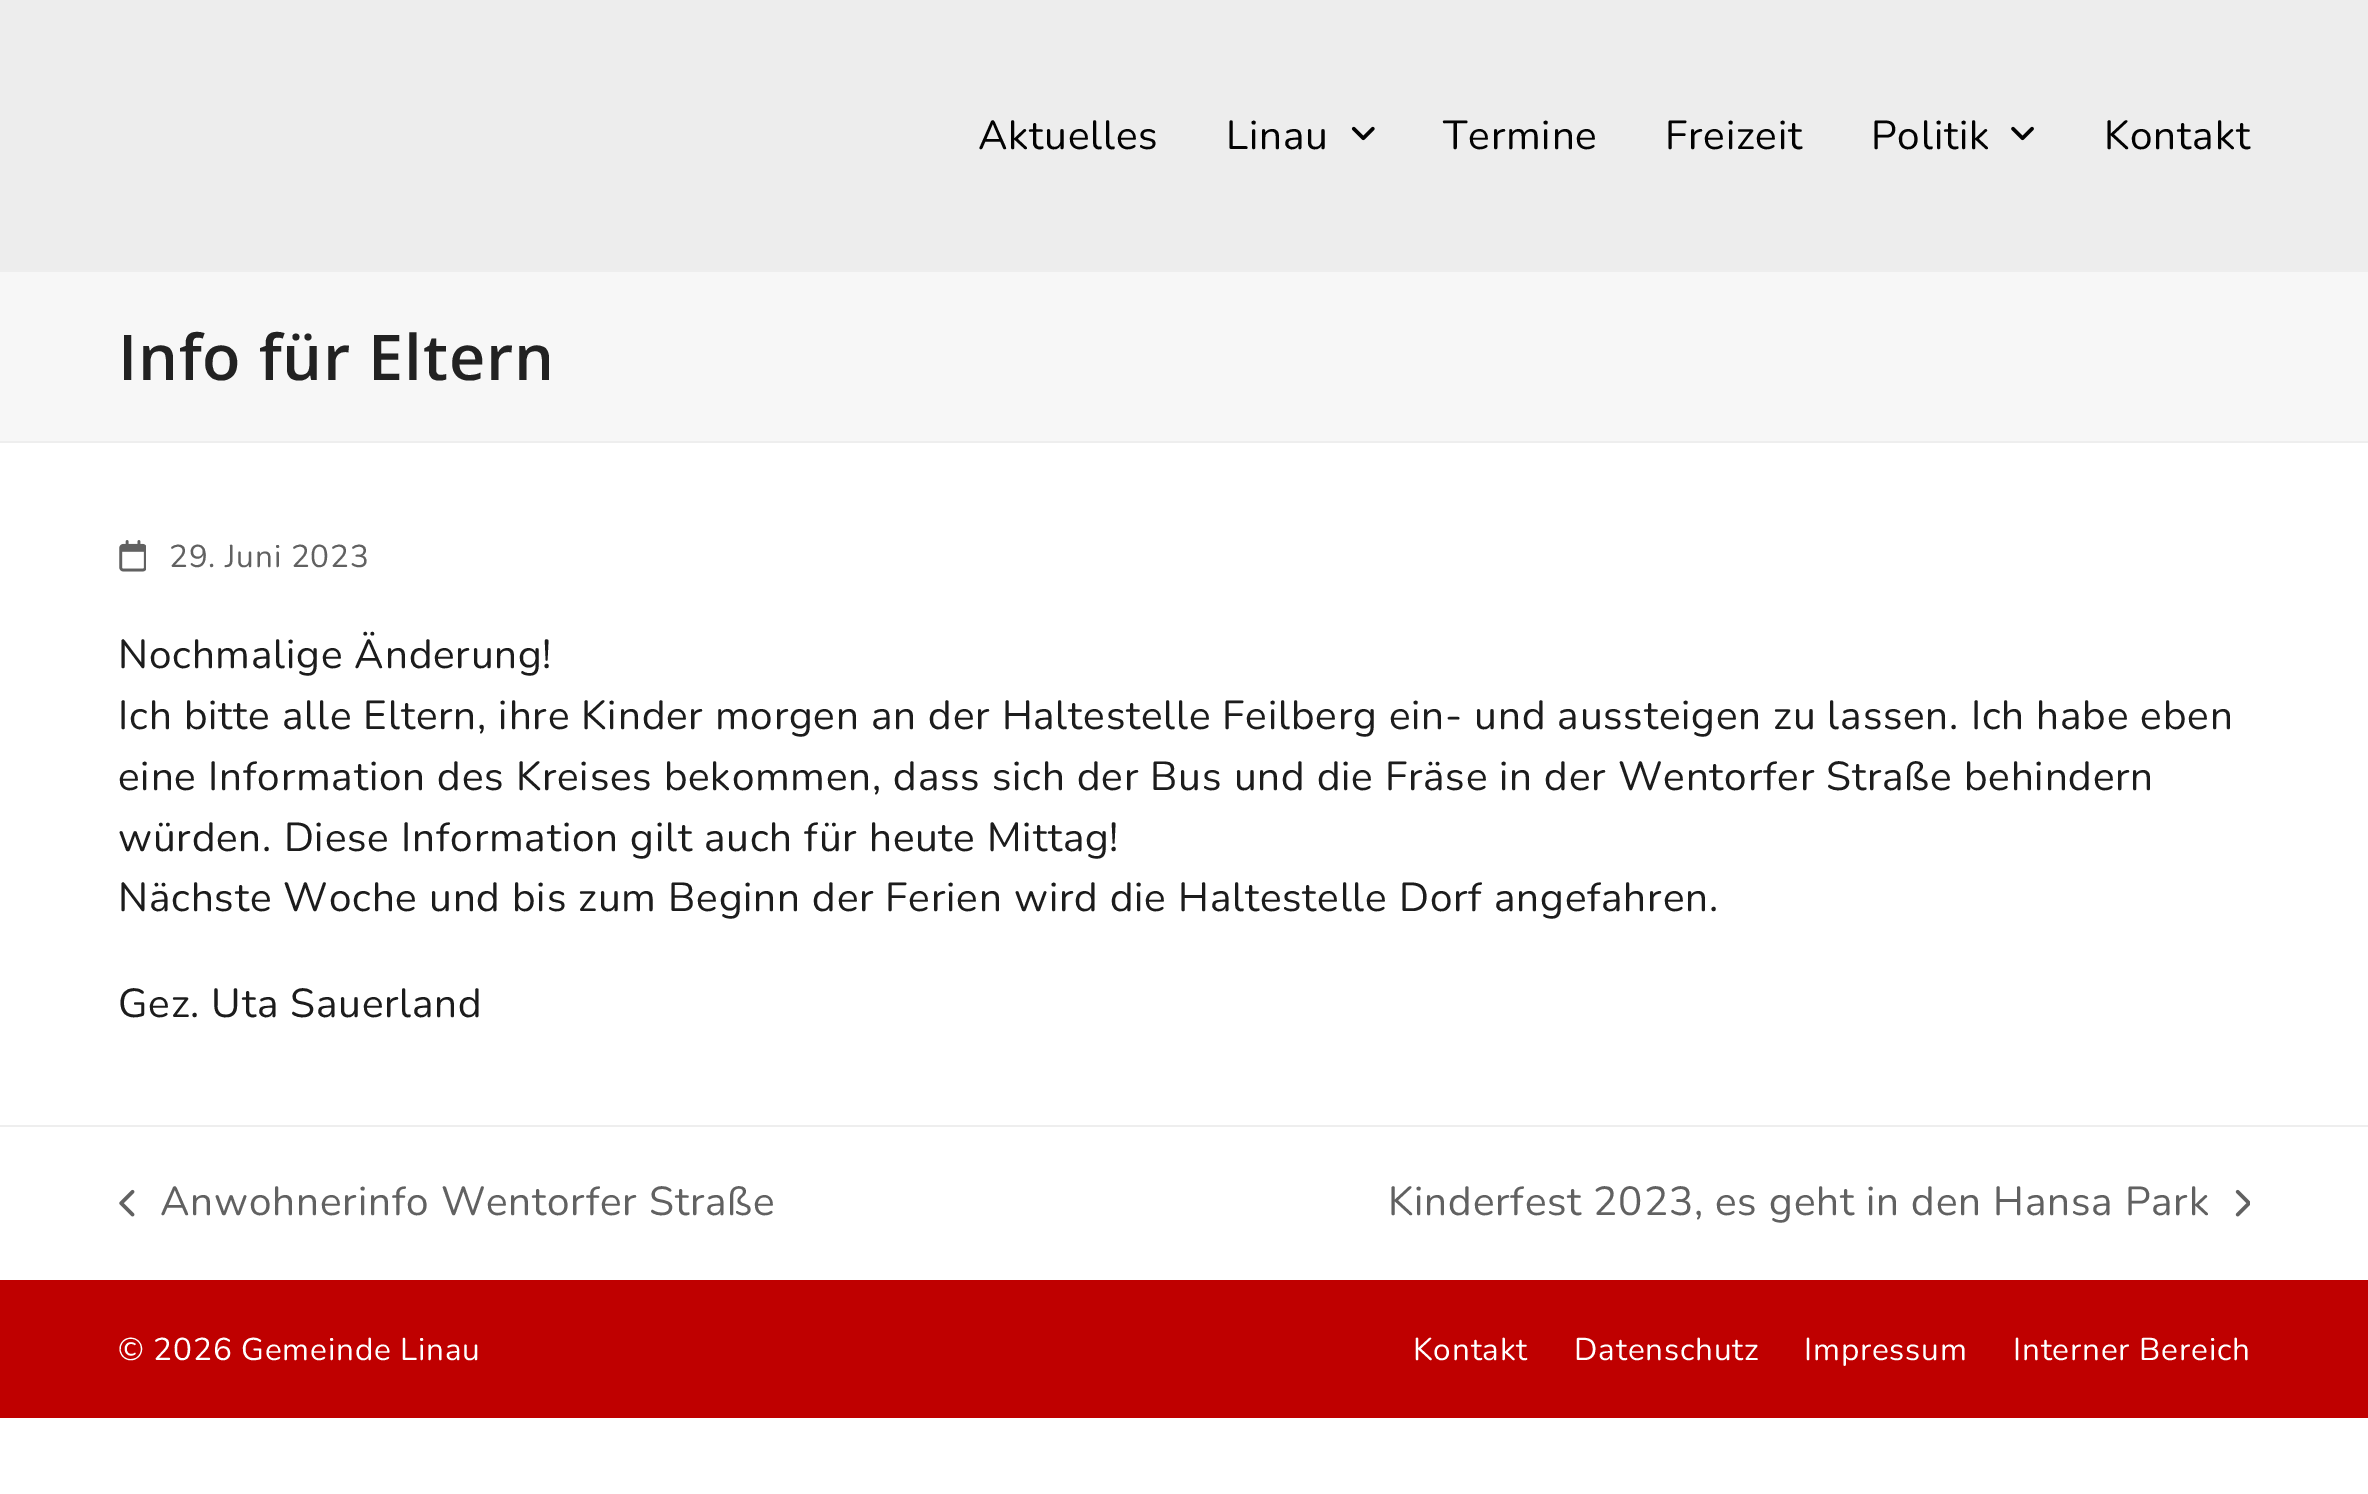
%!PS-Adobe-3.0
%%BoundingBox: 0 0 2368 1494
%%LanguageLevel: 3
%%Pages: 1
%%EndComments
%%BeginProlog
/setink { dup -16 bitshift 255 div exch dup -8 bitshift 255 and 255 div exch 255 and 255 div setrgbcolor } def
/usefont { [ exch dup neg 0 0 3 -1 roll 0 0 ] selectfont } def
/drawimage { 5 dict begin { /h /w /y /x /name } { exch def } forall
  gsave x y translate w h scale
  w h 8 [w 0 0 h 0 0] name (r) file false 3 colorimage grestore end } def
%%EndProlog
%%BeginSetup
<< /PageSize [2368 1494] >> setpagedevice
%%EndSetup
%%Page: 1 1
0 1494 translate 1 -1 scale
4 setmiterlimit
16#FFFFFF setink
0 0 2368 1494 rectfill
16#EDEDED setink
0 0 2368 270 rectfill
/Nunito-Regular 40.5 usefont
16#020202 setink
978 149 moveto 0.81 0 (Aktuelles) ashow
1226 149 moveto 0.81 0 (Linau) ashow
(img1.raw) 1351 126 24 15 drawimage
1443 149 moveto 0.81 0 (Termine) ashow
1665 149 moveto 0.81 0 (Freizeit) ashow
1871 149 moveto 0.81 0 (Politik) ashow
(img2.raw) 2011 126 23 15 drawimage
2104 149 moveto 0.81 0 (Kontakt) ashow
[
    [0 272 2368 169 16#F7F7F7]
    [0 270 2368 2 16#EEEEEE]
    [0 441 2368 2 16#EEEEEE]
] { aload pop setink rectfill } forall
/OpenSans-SemiBold 63 usefont
16#222222 setink
118 380 moveto 0.81 0 (Info für Eltern) ashow
(img3.raw) 119 540 27 32 drawimage
/Nunito-Regular 31.5 usefont
16#616161 setink
169 567 moveto 0.81 0 (29. Juni 2023) ashow
/Nunito-Regular 40.5 usefont
16#1C1C1C setink
118 668 moveto 0.81 0 (Nochmalige Änderung!) ashow
118 729 moveto 0.81 0 (Ich bitte alle Eltern, ihre Kinder morgen an der Haltestelle Feilberg ein- und aussteigen zu lassen. Ich habe eben) ashow
118 790 moveto 0.81 0 (eine Information des Kreises bekommen, dass sich der Bus und die Fräse in der Wentorfer Straße behindern) ashow
118 851 moveto 0.81 0 (würden. Diese Information gilt auch für heute Mittag!) ashow
118 911 moveto 0.81 0 (Nächste Woche und bis zum Beginn der Ferien wird die Haltestelle Dorf angefahren.) ashow
118 1017 moveto 0.81 0 (Gez. Uta Sauerland) ashow
16#EEEEEE setink
0 1125 2368 2 rectfill
(img4.raw) 119 1189 16 28 drawimage
16#616161 setink
160 1215 moveto 0.81 0 (Anwohnerinfo Wentorfer Straße) ashow
1388 1215 moveto 0.81 0 (Kinderfest 2023, es geht in den Hansa Park) ashow
(img5.raw) 2235 1189 15 28 drawimage
16#BF0000 setink
0 1280 2368 138 rectfill
/Nunito-Regular 31.5 usefont
16#FFFFFF setink
118 1360 moveto 0.81 0 (© 2026 Gemeinde Linau) ashow
1413 1360 moveto 0.81 0 (Kontakt) ashow
1574 1360 moveto 0.81 0 (Datenschutz) ashow
1804 1360 moveto 0.81 0 (Impressum) ashow
2013 1360 moveto 0.81 0 (Interner Bereich) ashow
showpage
%%EOF
